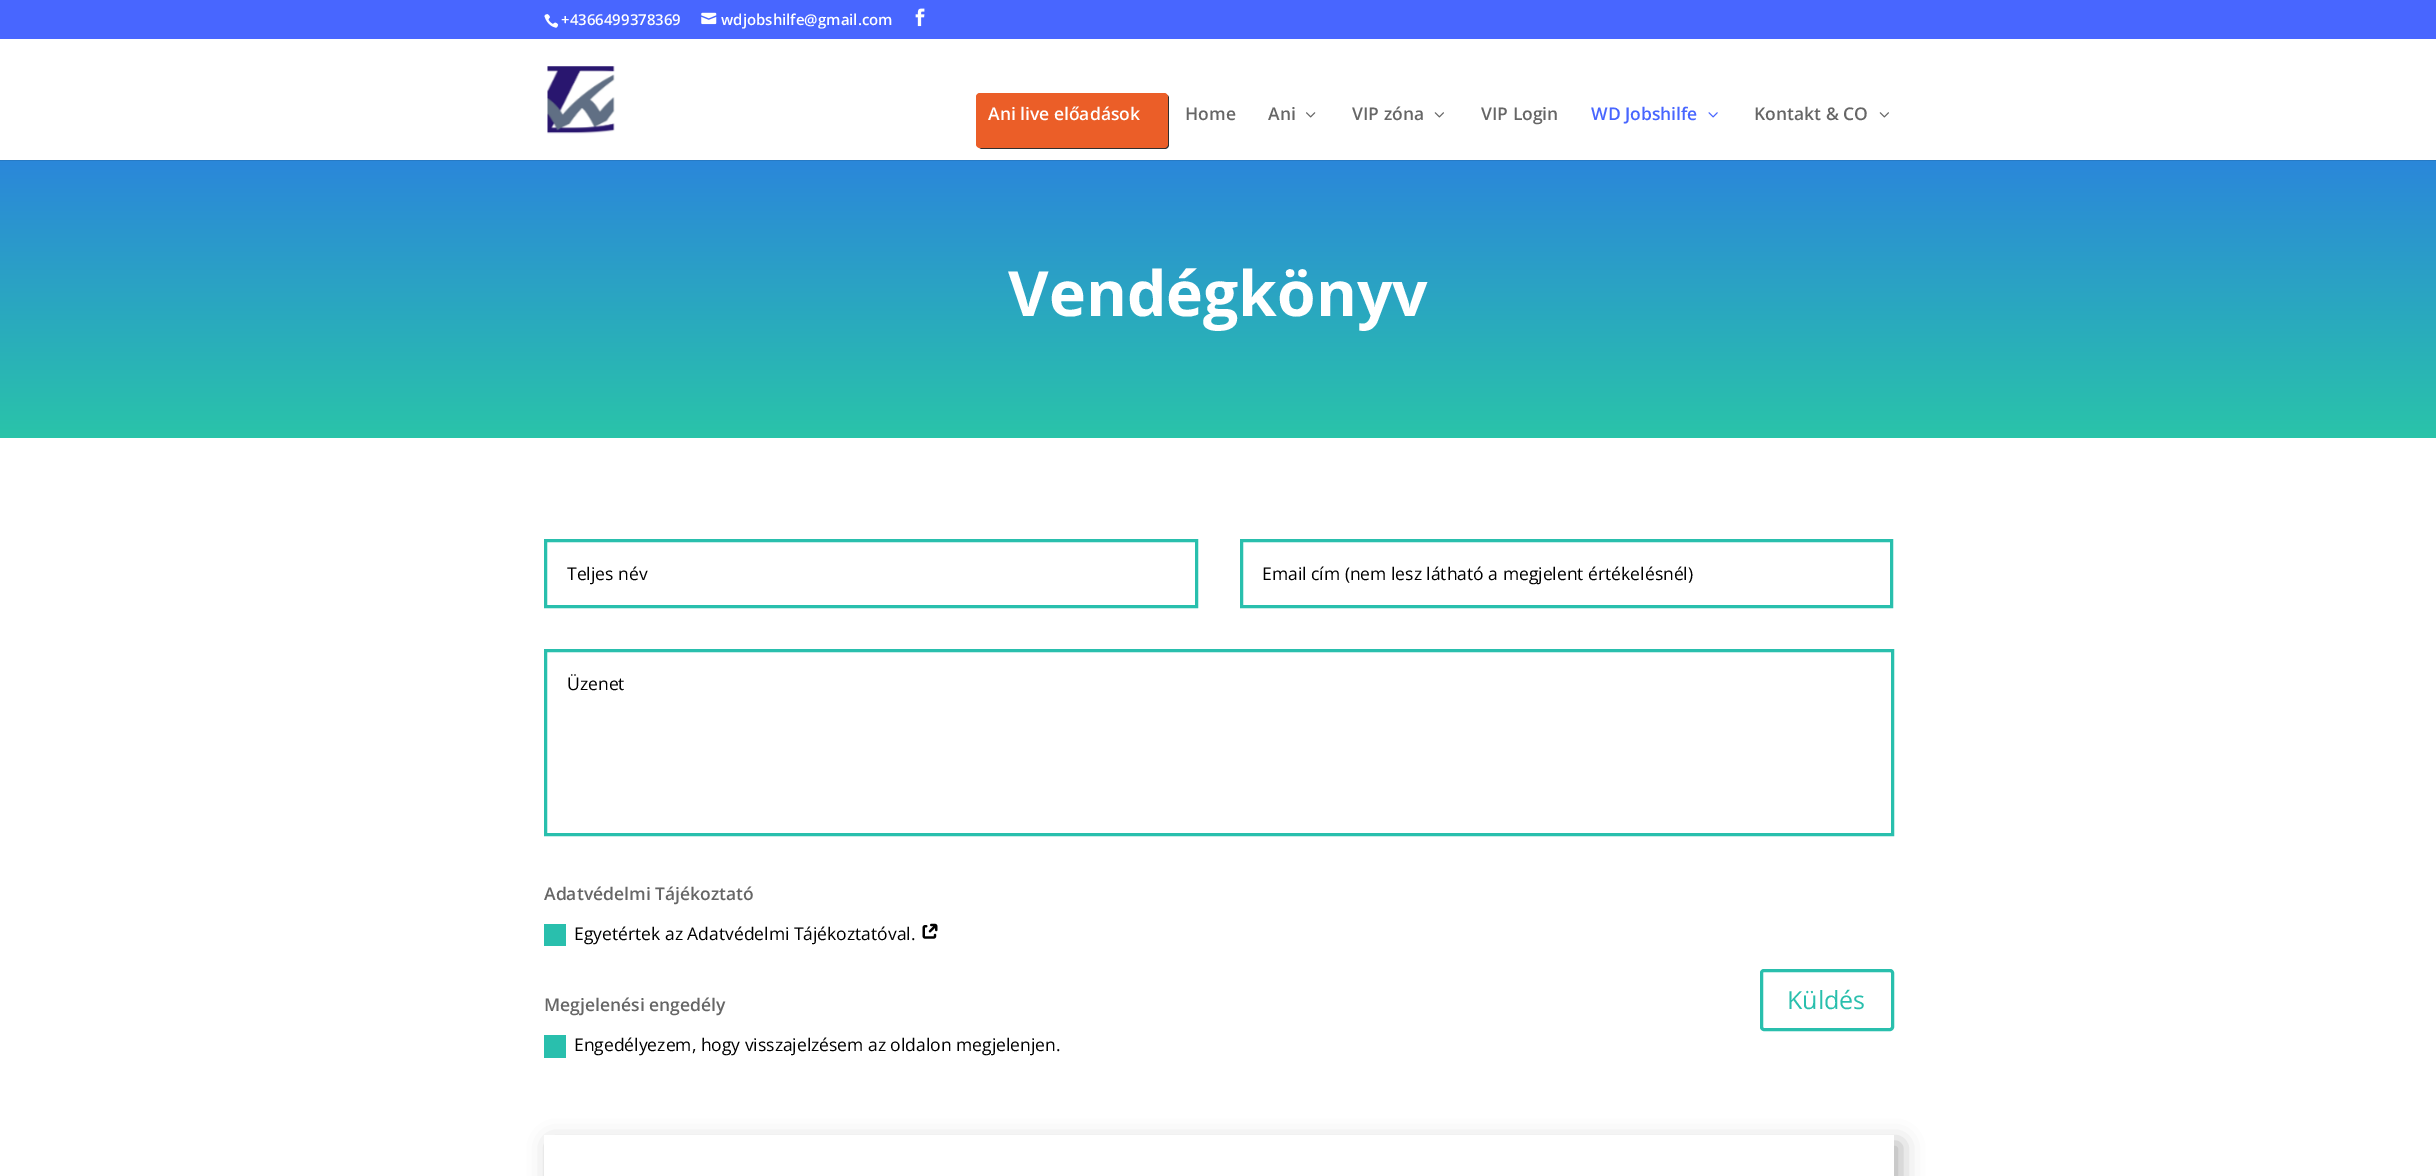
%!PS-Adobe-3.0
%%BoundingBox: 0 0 2436 1176
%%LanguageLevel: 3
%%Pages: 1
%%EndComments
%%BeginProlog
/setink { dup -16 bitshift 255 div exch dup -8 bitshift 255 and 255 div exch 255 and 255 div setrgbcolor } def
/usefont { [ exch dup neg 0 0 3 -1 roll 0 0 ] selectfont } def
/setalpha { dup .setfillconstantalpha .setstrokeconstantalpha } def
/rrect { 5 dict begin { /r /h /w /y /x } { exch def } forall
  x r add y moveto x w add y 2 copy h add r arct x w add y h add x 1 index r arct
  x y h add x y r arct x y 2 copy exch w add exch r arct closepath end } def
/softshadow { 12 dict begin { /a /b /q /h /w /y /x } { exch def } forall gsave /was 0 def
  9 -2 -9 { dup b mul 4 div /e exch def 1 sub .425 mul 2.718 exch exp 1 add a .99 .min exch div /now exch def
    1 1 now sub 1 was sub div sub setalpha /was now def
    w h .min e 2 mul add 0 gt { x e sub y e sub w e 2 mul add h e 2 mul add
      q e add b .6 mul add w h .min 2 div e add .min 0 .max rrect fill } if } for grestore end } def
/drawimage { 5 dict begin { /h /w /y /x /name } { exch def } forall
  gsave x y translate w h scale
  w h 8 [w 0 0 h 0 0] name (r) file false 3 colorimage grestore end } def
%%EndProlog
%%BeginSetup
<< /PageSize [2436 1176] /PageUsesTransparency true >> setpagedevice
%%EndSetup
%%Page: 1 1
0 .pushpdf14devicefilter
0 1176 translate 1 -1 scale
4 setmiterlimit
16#FFFFFF setink
0 0 2436 1176 rectfill
16#4866FF setink
0 0 2436 39 rectfill
(img1.raw) 544 14 15 14 drawimage
/OpenSans-SemiBold 15 usefont
16#FFFFFF setink
561 25 moveto (+4366499378369) show
(img2.raw) 701 12 16 13 drawimage
721 25 moveto (wdjobshilfe@gmail.com) show
(img3.raw) 915 8 10 19 drawimage
16#277AC4 setink
0 160 2436 1 rectfill
(img4.raw) 547 66 68 68 drawimage
16#2F2F2F setink
979 147 moveto 979 148 981 149 982 149 curveto 1165 149 lineto 1167 149 1169 147 1169 145 curveto 1169 98 lineto 1169 97 1168 95 1167 95 curveto 1168 136 lineto 1168 138 1169 147 1164 148 curveto closepath fill
16#EB5E28 setink
976 93 192 55 4 rrect fill
/OpenSans-SemiBold 17.5 usefont
16#FFFFFF setink
988 120 moveto (Ani live előadások) show
16#666666 setink
1185 120 moveto (Home) show
1268 120 moveto (Ani) show
(img5.raw) 1306 112 10 6 drawimage
1352 120 moveto (VIP zóna) show
(img6.raw) 1434 112 10 6 drawimage
1481 120 moveto (VIP Login) show
16#4866FF setink
1591 120 moveto (WD Jobshilfe) show
(img7.raw) 1708 112 10 6 drawimage
16#666666 setink
1754 120 moveto (Kontakt & CO) show
(img6.raw) 1879 112 10 6 drawimage
gsave 0 161 moveto 2436 161 lineto 2436 438 lineto 0 438 lineto closepath clip newpath
<< /ShadingType 2 /ColorSpace /DeviceRGB /Coords [1218 160 1218 438] /Extend [true true] /Function << /FunctionType 2 /Domain [0 1] /C0 [0.169 0.529 0.855] /C1 [0.161 0.769 0.663] /N 1 >> >> shfill grestore
/OpenSans-Bold 62.5 usefont
16#FFFFFF setink
1008 316 moveto (Vendégkönyv) show
16#29BFAD setink
3 setlinewidth
545.5 540.5 651 66 rectstroke
/OpenSans-Regular 17.5 usefont
16#000000 setink
567 580 moveto (Teljes név) show
16#29BFAD setink
1241.5 540.5 650 66 rectstroke
16#000000 setink
1262 580 moveto (Email cím \(nem lesz látható a megjelent értékelésnél\)) show
16#29BFAD setink
545.5 650.5 1347 184 rectstroke
16#000000 setink
567 690 moveto (Üzenet) show
/OpenSans-SemiBold 17.5 usefont
16#666666 setink
544 900 moveto (Adatvédelmi Tájékoztató) show
16#29BFAD setink
544 924 22 22 rectfill
/OpenSans-Regular 17.5 usefont
16#000000 setink
574 940 moveto (Egyetértek az Adatvédelmi Tájékoztatóval.) show
(img8.raw) 922 923 16 16 drawimage
/OpenSans-SemiBold 17.5 usefont
16#666666 setink
544 1011 moveto (Megjelenési engedély) show
16#29BFAD setink
544 1035 22 23 rectfill
/OpenSans-Regular 17.5 usefont
16#000000 setink
574 1051 moveto (Engedélyezem, hogy visszajelzésem az oldalon megjelenjen.) show
16#29BFAD setink
1761.5 970.5 131 59 2.5 rrect stroke
/OpenSans-Regular 25 usefont
1787 1009 moveto (Küldés) show
gsave
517 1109 moveto 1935 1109 lineto 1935 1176 lineto 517 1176 lineto closepath 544 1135 moveto 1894 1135 lineto 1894 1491 lineto 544 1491 lineto closepath eoclip newpath
16#000000 setink
551 1143 1350 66 0 11 0.3 softshadow
grestore
.poppdf14devicefilter showpage
%%EOF
